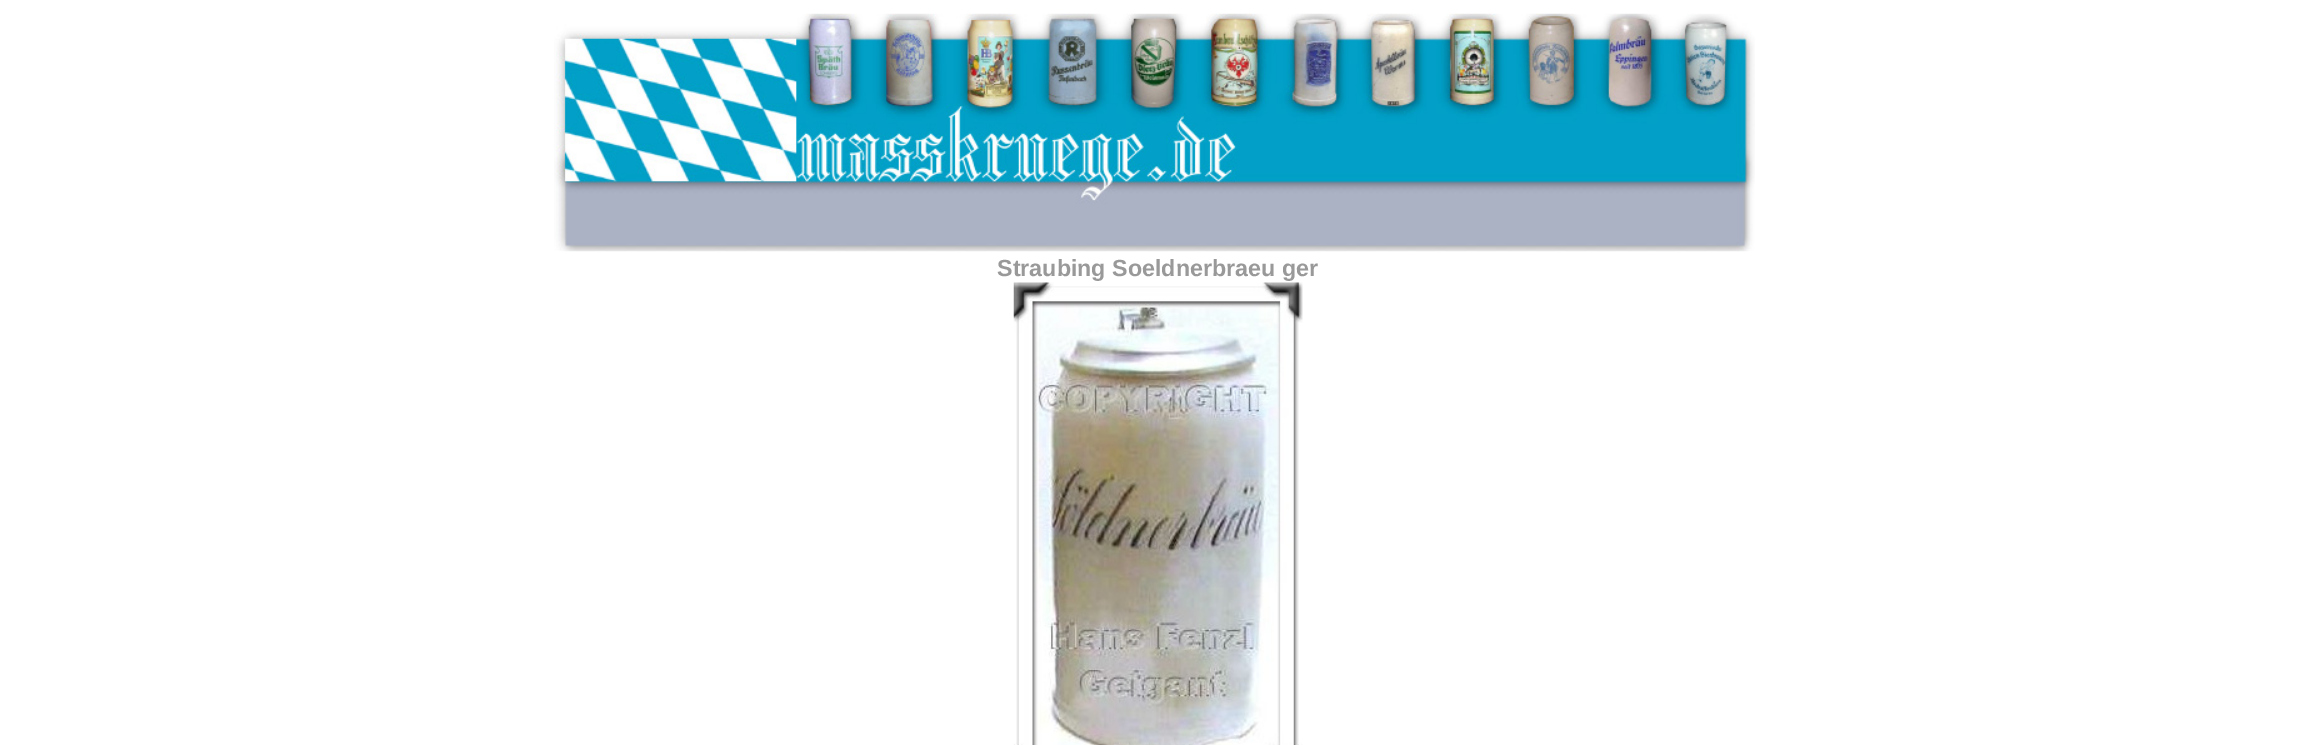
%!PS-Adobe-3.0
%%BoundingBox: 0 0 2315 745
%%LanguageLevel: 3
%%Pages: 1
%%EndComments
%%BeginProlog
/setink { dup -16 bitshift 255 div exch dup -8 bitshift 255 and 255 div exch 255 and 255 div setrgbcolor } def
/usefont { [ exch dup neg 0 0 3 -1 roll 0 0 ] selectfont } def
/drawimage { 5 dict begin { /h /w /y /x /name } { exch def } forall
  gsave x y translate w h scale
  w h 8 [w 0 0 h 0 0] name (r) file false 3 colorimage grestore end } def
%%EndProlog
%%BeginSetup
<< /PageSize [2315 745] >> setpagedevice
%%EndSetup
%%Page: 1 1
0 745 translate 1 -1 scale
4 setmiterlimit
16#FFFFFF setink
0 0 2315 745 rectfill
(img1.raw) 554 13 1201 239 drawimage
/LiberationSans-Bold 23.3 usefont
16#999999 setink
997 276 moveto (Straubing Soeldnerbraeu ger) show
(img2.raw) 1013 282 290 463 drawimage
showpage
%%EOF
